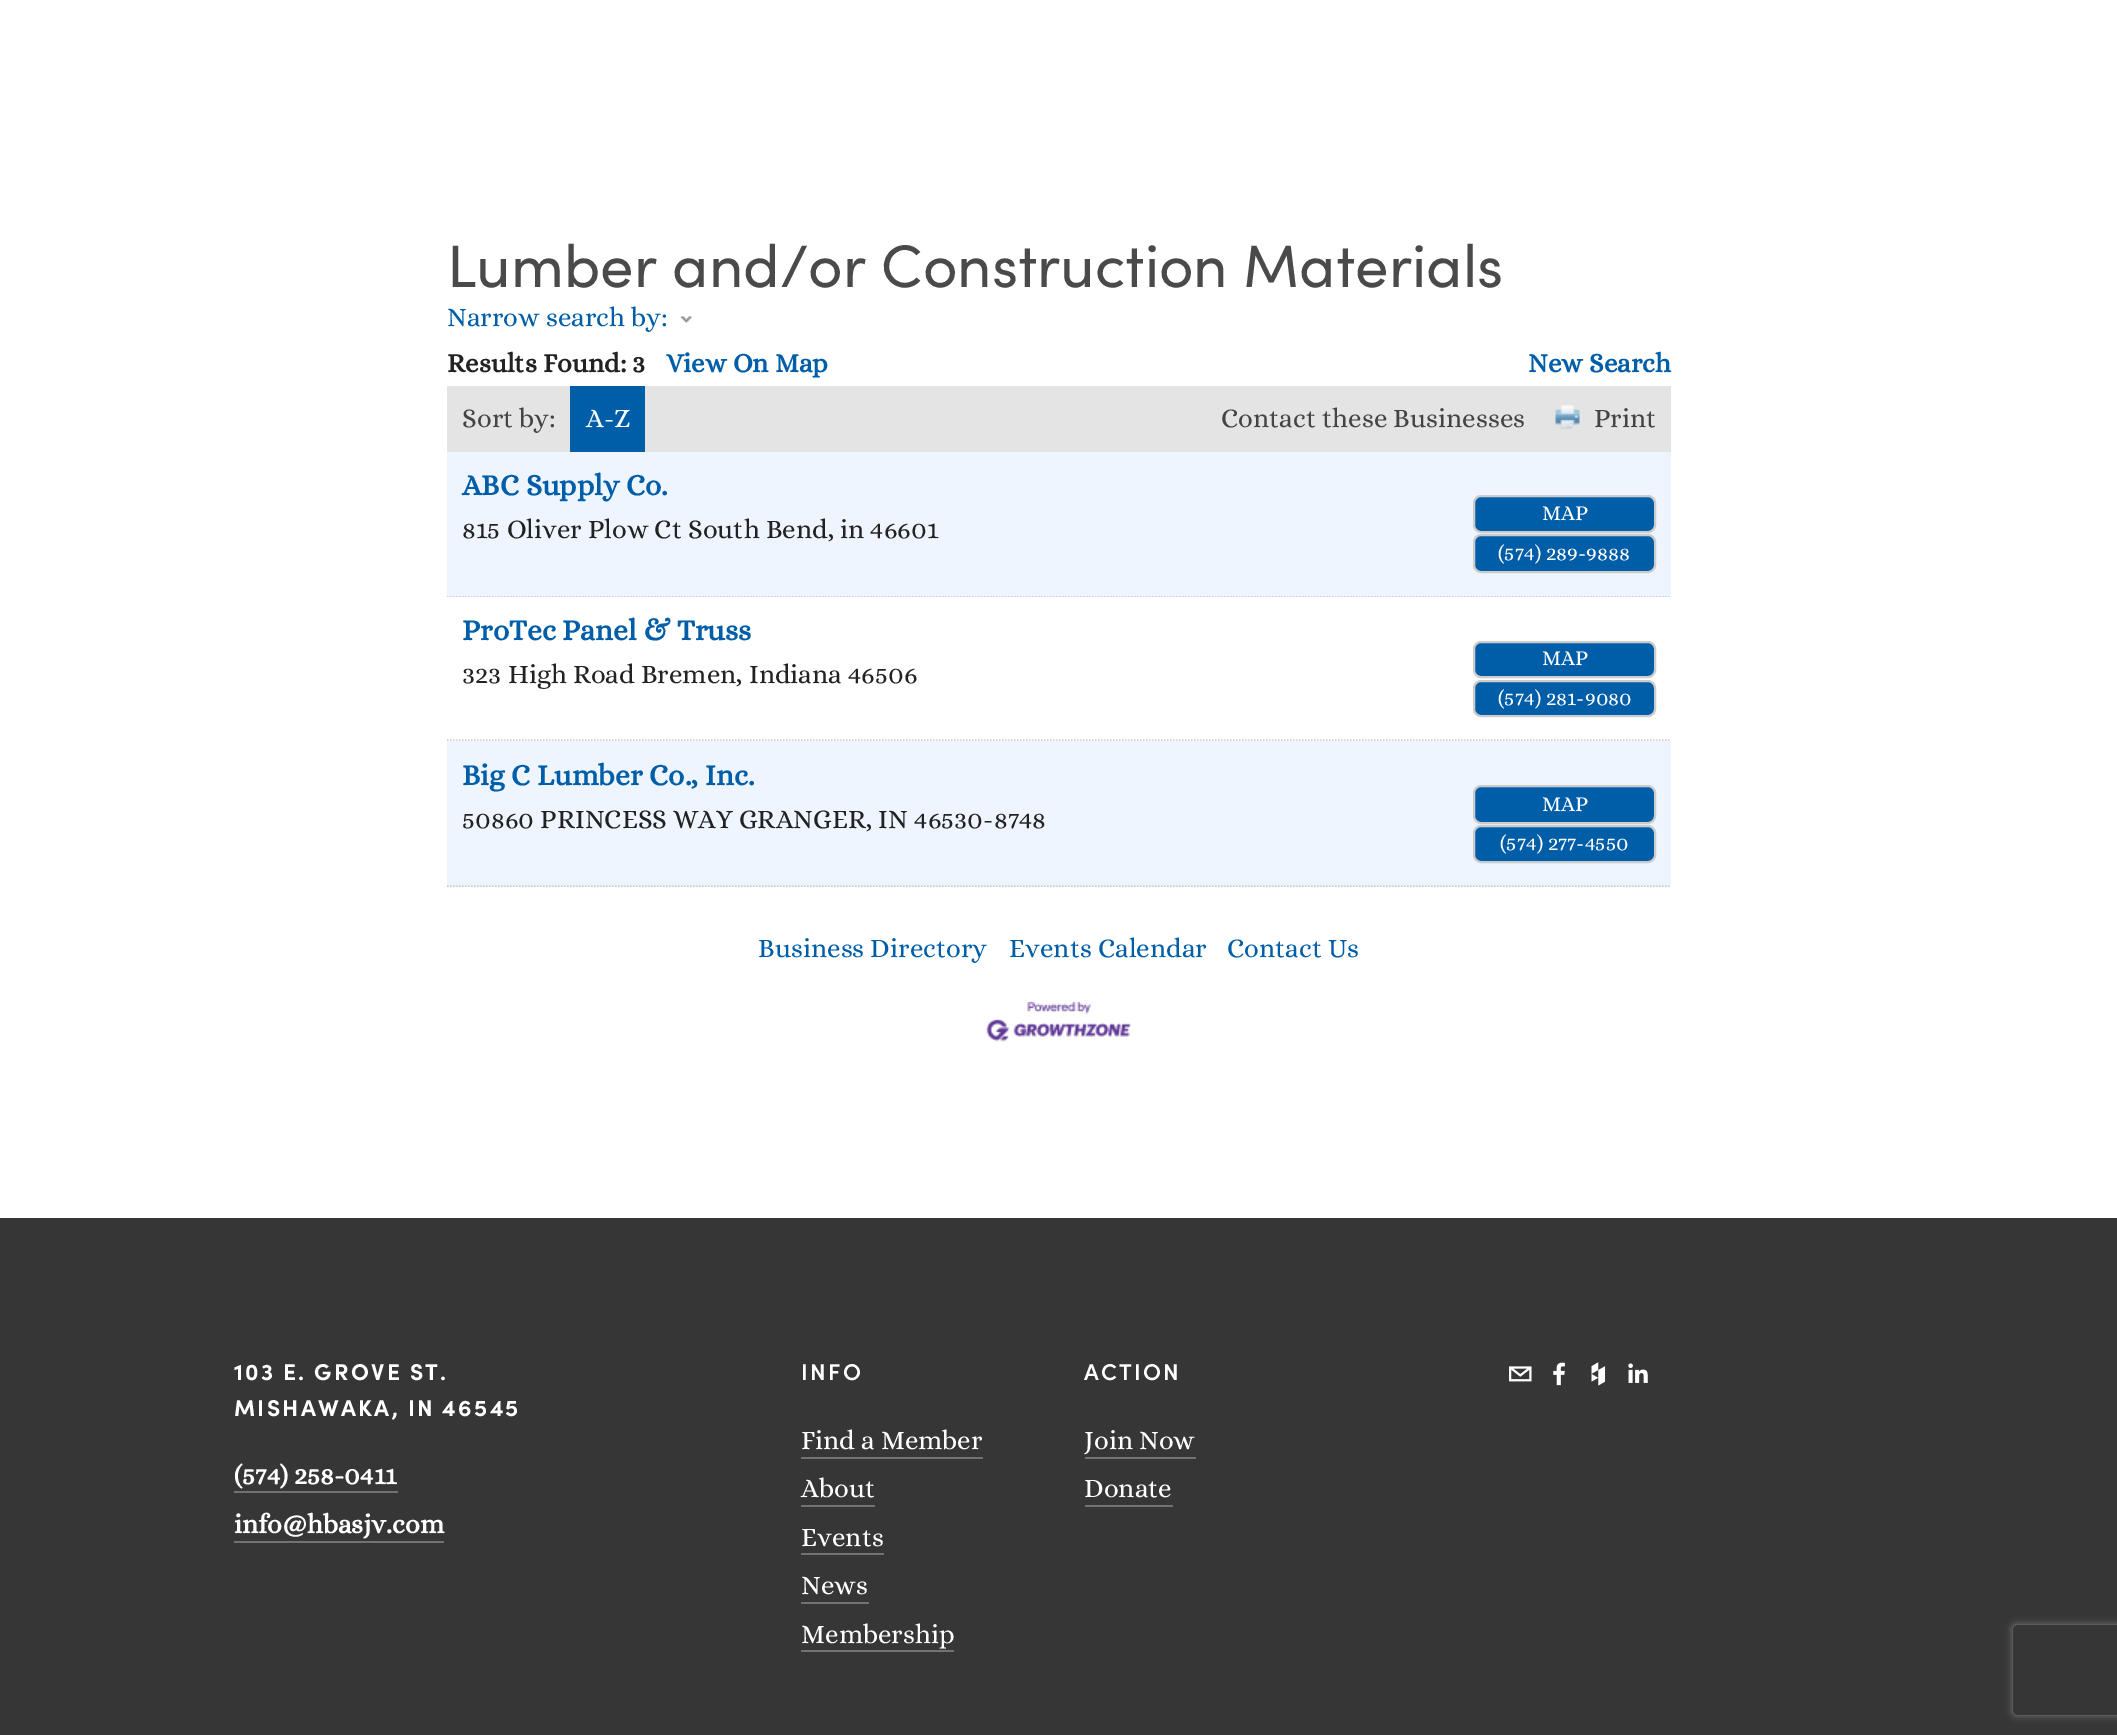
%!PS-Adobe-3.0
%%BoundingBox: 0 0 2117 1735
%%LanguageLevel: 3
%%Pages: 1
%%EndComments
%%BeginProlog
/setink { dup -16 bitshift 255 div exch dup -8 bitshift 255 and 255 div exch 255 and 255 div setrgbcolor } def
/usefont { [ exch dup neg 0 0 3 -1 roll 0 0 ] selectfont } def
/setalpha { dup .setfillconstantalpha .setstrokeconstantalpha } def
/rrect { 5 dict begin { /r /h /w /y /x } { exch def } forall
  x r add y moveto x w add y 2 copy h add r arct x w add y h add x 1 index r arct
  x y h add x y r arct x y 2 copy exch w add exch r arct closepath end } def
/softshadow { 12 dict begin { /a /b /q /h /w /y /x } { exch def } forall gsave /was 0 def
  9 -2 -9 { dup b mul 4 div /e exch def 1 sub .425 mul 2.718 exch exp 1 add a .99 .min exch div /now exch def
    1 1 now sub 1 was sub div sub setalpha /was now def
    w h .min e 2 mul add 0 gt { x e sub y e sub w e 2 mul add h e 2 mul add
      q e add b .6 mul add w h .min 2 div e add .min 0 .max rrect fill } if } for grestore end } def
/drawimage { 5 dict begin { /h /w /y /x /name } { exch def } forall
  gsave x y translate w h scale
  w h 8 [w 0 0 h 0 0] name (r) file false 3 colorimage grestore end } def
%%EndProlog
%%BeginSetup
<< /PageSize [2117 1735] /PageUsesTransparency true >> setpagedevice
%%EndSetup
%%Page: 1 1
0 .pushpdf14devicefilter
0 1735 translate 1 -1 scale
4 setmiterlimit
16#363636 setink
0 0 2117 1735 rectfill
16#FFFFFF setink
0 0 2117 1218 rectfill
/Sofia-Regular 60 usefont
16#4A4A4A setink
447 287 moveto (Lumber and/or Construction Materials) show
/Alice-Regular 27 usefont
16#005DA8 setink
447 326 moveto (Narrow search by:) show
(img1.raw) 680 316 12 7 drawimage
/Alice-Bold 27 usefont
16#222222 setink
447 372 moveto (Results Found: 3) show
16#005DA8 setink
666 372 moveto (View On Map) show
1528 372 moveto (New Search) show
16#E4E4E4 setink
447 386 1224 66 rectfill
/Alice-Regular 27 usefont
16#444444 setink
462 427 moveto (Sort by:) show
16#005DA8 setink
570 386 75 66 rectfill
16#FFFFFF setink
586 427 moveto (A-Z) show
16#444444 setink
1221 427 moveto (Contact these Businesses) show
(img2.raw) 1555 405 25 24 drawimage
1594 427 moveto (Print) show
16#EEF5FF setink
447 596 1224 1 rectfill
16#CCCCCC setink
1.5 setlinewidth
[1.5 1.5] 0 setdash
447 596 moveto 1671 596 lineto stroke
16#EEF5FF setink
447 452 1224 144 rectfill
/Alice-Bold 29.75 usefont
16#005DA8 setink
462 495 moveto (ABC Supply Co.) show
/Alice-Regular 27 usefont
16#222222 setink
462 538 moveto (815 Oliver Plow Ct South Bend, in 46601) show
16#005DA8 setink
1474 496 181 36 7 rrect gsave fill grestore
16#CCCCCC setink
2 setlinewidth
[] 0 setdash
stroke
/Alice-Regular 21.5 usefont
16#FFFFFF setink
1542 520 moveto (MAP) show
16#005DA8 setink
1474 535 181 37 7 rrect gsave fill grestore
16#CCCCCC setink
stroke
16#FFFFFF setink
1498 560 moveto (\(574\) 289-9888) show
16#CCCCCC setink
1.5 setlinewidth
[1.5 1.5] 0 setdash
447 740 moveto 1671 740 lineto stroke
/Alice-Bold 29.75 usefont
16#005DA8 setink
462 640 moveto (ProTec Panel & Truss) show
/Alice-Regular 27 usefont
16#222222 setink
462 683 moveto (323 High Road Bremen, Indiana 46506) show
16#005DA8 setink
1474 642 181 35 7 rrect gsave fill grestore
16#CCCCCC setink
2 setlinewidth
[] 0 setdash
stroke
/Alice-Regular 21.5 usefont
16#FFFFFF setink
1542 665 moveto (MAP) show
16#005DA8 setink
1474 681 181 35 7 rrect gsave fill grestore
16#CCCCCC setink
stroke
16#FFFFFF setink
1498 705 moveto (\(574\) 281-9080) show
16#EEF5FF setink
447 741 1224 146 rectfill
16#CCCCCC setink
1.5 setlinewidth
[1.5 1.5] 0 setdash
447 886 moveto 1671 886 lineto stroke
/Alice-Bold 29.75 usefont
16#005DA8 setink
462 785 moveto (Big C Lumber Co., Inc.) show
/Alice-Regular 27 usefont
16#222222 setink
462 828 moveto (50860 PRINCESS WAY GRANGER, IN 46530-8748) show
16#005DA8 setink
1474 786 181 37 7 rrect gsave fill grestore
16#CCCCCC setink
2 setlinewidth
[] 0 setdash
stroke
/Alice-Regular 21.5 usefont
16#FFFFFF setink
1542 811 moveto (MAP) show
16#005DA8 setink
1474 826 181 36 7 rrect gsave fill grestore
16#CCCCCC setink
stroke
16#FFFFFF setink
1500 850 moveto (\(574\) 277-4550) show
/Alice-Regular 27 usefont
16#005DA8 setink
[
    [(Business Directory) 758 957]
    [(Events Calendar) 1009 957]
    [(Contact Us) 1227 957]
] { aload pop moveto show } forall
(img3.raw) 986 1001 146 41 drawimage
/Sofia-Bold 22.9 usefont
16#FFFFFF setink
234 1380 moveto 2.25 0 (103 E. GROVE ST.) ashow
234 1416 moveto 2.25 0 (MISHAWAKA, IN 46545) ashow
/Alice-Bold 27 usefont
234 1484 moveto (\(574\) 258-0411) show
16#727272 setink
234 1491 164 2 rectfill
16#FFFFFF setink
234 1533 moveto (info@hbasjv.com) show
16#727272 setink
234 1541 210 2 rectfill
/Sofia-SemiBold 22.9 usefont
16#FFFFFF setink
801 1380 moveto 2.25 0 (INFO) ashow
/Alice-Regular 27 usefont
801 1449 moveto (Find a Member) show
16#727272 setink
801 1457 182 2 rectfill
16#FFFFFF setink
801 1497 moveto (About) show
16#727272 setink
801 1505 74 2 rectfill
16#FFFFFF setink
801 1546 moveto (Events) show
16#727272 setink
801 1553 83 2 rectfill
16#FFFFFF setink
801 1594 moveto (News) show
16#727272 setink
801 1602 68 2 rectfill
16#FFFFFF setink
801 1643 moveto (Membership) show
16#727272 setink
801 1650 153 2 rectfill
/Sofia-SemiBold 22.9 usefont
16#FFFFFF setink
1084 1380 moveto 2.25 0 (ACTION) ashow
/Alice-Regular 27 usefont
1084 1449 moveto (Join Now) show
16#727272 setink
1085 1457 111 2 rectfill
16#FFFFFF setink
1084 1497 moveto (Donate) show
16#727272 setink
1085 1505 88 2 rectfill
(img4.raw) 1509 1366 23 16 drawimage
(img5.raw) 1553 1362 12 24 drawimage
(img6.raw) 1591 1362 15 24 drawimage
(img7.raw) 1628 1363 20 20 drawimage
gsave
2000 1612 moveto 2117 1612 lineto 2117 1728 lineto 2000 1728 lineto closepath 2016 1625 moveto 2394 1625 lineto 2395.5 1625 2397 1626.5 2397 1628 curveto 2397 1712 lineto 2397 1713.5 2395.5 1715 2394 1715 curveto 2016 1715 lineto 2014.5 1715 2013 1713.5 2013 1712 curveto 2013 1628 lineto 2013 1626.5 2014.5 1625 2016 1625 curveto closepath eoclip newpath
16#808080 setink
2013 1625 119 90 3 4 1 softshadow
grestore
.poppdf14devicefilter showpage
%%EOF
